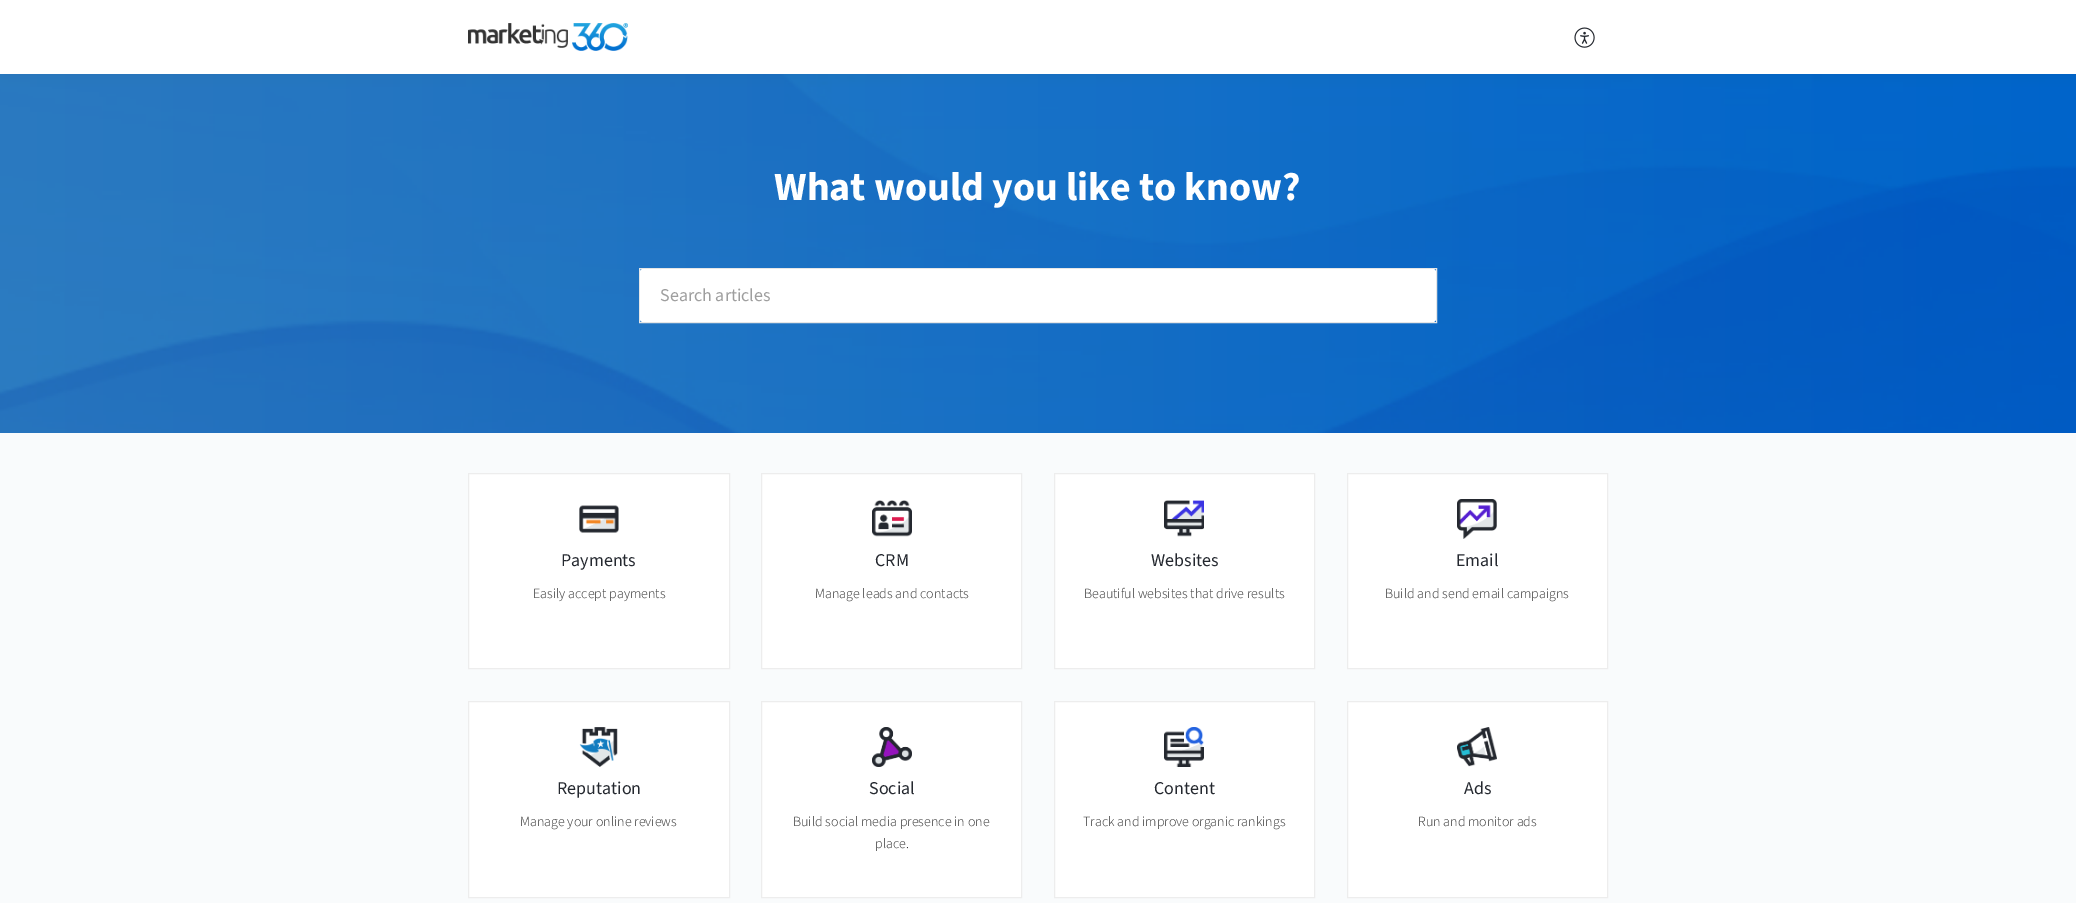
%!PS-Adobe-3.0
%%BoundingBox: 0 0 2076 903
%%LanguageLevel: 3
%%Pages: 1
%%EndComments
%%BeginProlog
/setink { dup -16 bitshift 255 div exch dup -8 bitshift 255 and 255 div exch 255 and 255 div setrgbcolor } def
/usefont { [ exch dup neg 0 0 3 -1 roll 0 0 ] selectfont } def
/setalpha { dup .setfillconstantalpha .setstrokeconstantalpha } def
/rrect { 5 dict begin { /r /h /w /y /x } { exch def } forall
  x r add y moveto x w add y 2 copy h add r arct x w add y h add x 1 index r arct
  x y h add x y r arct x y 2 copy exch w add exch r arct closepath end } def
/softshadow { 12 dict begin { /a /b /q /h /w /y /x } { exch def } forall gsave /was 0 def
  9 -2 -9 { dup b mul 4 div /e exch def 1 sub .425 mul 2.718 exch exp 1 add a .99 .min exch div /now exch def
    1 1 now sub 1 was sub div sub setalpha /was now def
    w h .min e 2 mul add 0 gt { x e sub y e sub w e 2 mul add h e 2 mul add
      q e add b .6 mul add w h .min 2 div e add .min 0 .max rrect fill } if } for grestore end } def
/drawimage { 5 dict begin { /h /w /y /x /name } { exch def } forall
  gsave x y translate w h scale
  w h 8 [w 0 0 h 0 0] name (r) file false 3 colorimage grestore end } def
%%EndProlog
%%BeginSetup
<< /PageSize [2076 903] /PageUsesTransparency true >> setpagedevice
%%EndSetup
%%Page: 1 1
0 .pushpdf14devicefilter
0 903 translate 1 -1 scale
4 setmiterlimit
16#F9FBFC setink
0 0 2076 903 rectfill
(img3.raw) 0 74 2076 359 drawimage
16#000000 setink
3 0 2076 74 0 7.5 0.05 softshadow
16#FFFFFF setink
0 0 2076 74 rectfill
(img1.raw) 468 23 160 28 drawimage
(img2.raw) 1574 27 21 21 drawimage
/SourceSans3-Bold 40 usefont
774 200 moveto (What would you like to know?) show
16#E6E6E6 setink
639.5 268.5 797 54 rectstroke
16#FFFFFF setink
640 269 796 53 3 rrect fill
/SourceSans3-Regular 18 usefont
16#9E9E9E setink
660 301 moveto (Search articles) show
16#FFFFFF setink
468.5 473.5 moveto 729.5 473.5 lineto 729.5 668.5 lineto 468.5 668.5 lineto closepath gsave fill grestore
16#EDEDED setink
stroke
(img4.raw) 579 505 40 28 drawimage
16#24282F setink
561 566 moveto (Payments) show
/SourceSans3-Light 14 usefont
16#333333 setink
533 598 moveto (Easily accept payments) show
16#FFFFFF setink
761.5 473.5 moveto 1021.5 473.5 lineto 1021.5 668.5 lineto 761.5 668.5 lineto closepath gsave fill grestore
16#EDEDED setink
stroke
(img5.raw) 872 500 40 37 drawimage
/SourceSans3-Regular 18 usefont
16#24282F setink
875 566 moveto (CRM) show
/SourceSans3-Light 14 usefont
16#333333 setink
815 598 moveto (Manage leads and contacts) show
16#FFFFFF setink
1054.5 473.5 moveto 1314.5 473.5 lineto 1314.5 668.5 lineto 1054.5 668.5 lineto closepath gsave fill grestore
16#EDEDED setink
stroke
(img6.raw) 1164 500 40 37 drawimage
/SourceSans3-Regular 18 usefont
16#24282F setink
1151 566 moveto (Websites) show
/SourceSans3-Light 14 usefont
16#333333 setink
1084 598 moveto (Beautiful websites that drive results) show
16#FFFFFF setink
1347.5 473.5 moveto 1607.5 473.5 lineto 1607.5 668.5 lineto 1347.5 668.5 lineto closepath gsave fill grestore
16#EDEDED setink
stroke
(img7.raw) 1457 499 40 40 drawimage
/SourceSans3-Regular 18 usefont
16#24282F setink
1456 566 moveto (Email) show
/SourceSans3-Light 14 usefont
16#333333 setink
1385 598 moveto (Build and send email campaigns) show
16#FFFFFF setink
468.5 701.5 moveto 729.5 701.5 lineto 729.5 897.5 lineto 468.5 897.5 lineto closepath gsave fill grestore
16#EDEDED setink
stroke
(img8.raw) 579 727 39 40 drawimage
/SourceSans3-Regular 18 usefont
16#24282F setink
557 794 moveto (Reputation) show
/SourceSans3-Light 14 usefont
16#333333 setink
520 826 moveto (Manage your online reviews) show
16#FFFFFF setink
761.5 701.5 moveto 1021.5 701.5 lineto 1021.5 897.5 lineto 761.5 897.5 lineto closepath gsave fill grestore
16#EDEDED setink
stroke
(img9.raw) 872 727 40 40 drawimage
/SourceSans3-Regular 18 usefont
16#24282F setink
869 794 moveto (Social) show
/SourceSans3-Light 14 usefont
16#333333 setink
793 826 moveto (Build social media presence in one) show
875 848 moveto (place.) show
16#FFFFFF setink
1054.5 701.5 moveto 1314.5 701.5 lineto 1314.5 897.5 lineto 1054.5 897.5 lineto closepath gsave fill grestore
16#EDEDED setink
stroke
(img10.raw) 1164 727 40 40 drawimage
/SourceSans3-Regular 18 usefont
16#24282F setink
1154 794 moveto (Content) show
/SourceSans3-Light 14 usefont
16#333333 setink
1083 826 moveto (Track and improve organic rankings) show
16#FFFFFF setink
1347.5 701.5 moveto 1607.5 701.5 lineto 1607.5 897.5 lineto 1347.5 897.5 lineto closepath gsave fill grestore
16#EDEDED setink
stroke
(img11.raw) 1457 727 40 40 drawimage
/SourceSans3-Regular 18 usefont
16#24282F setink
1464 794 moveto (Ads) show
/SourceSans3-Light 14 usefont
16#333333 setink
1418 826 moveto (Run and monitor ads) show
.poppdf14devicefilter showpage
%%EOF
